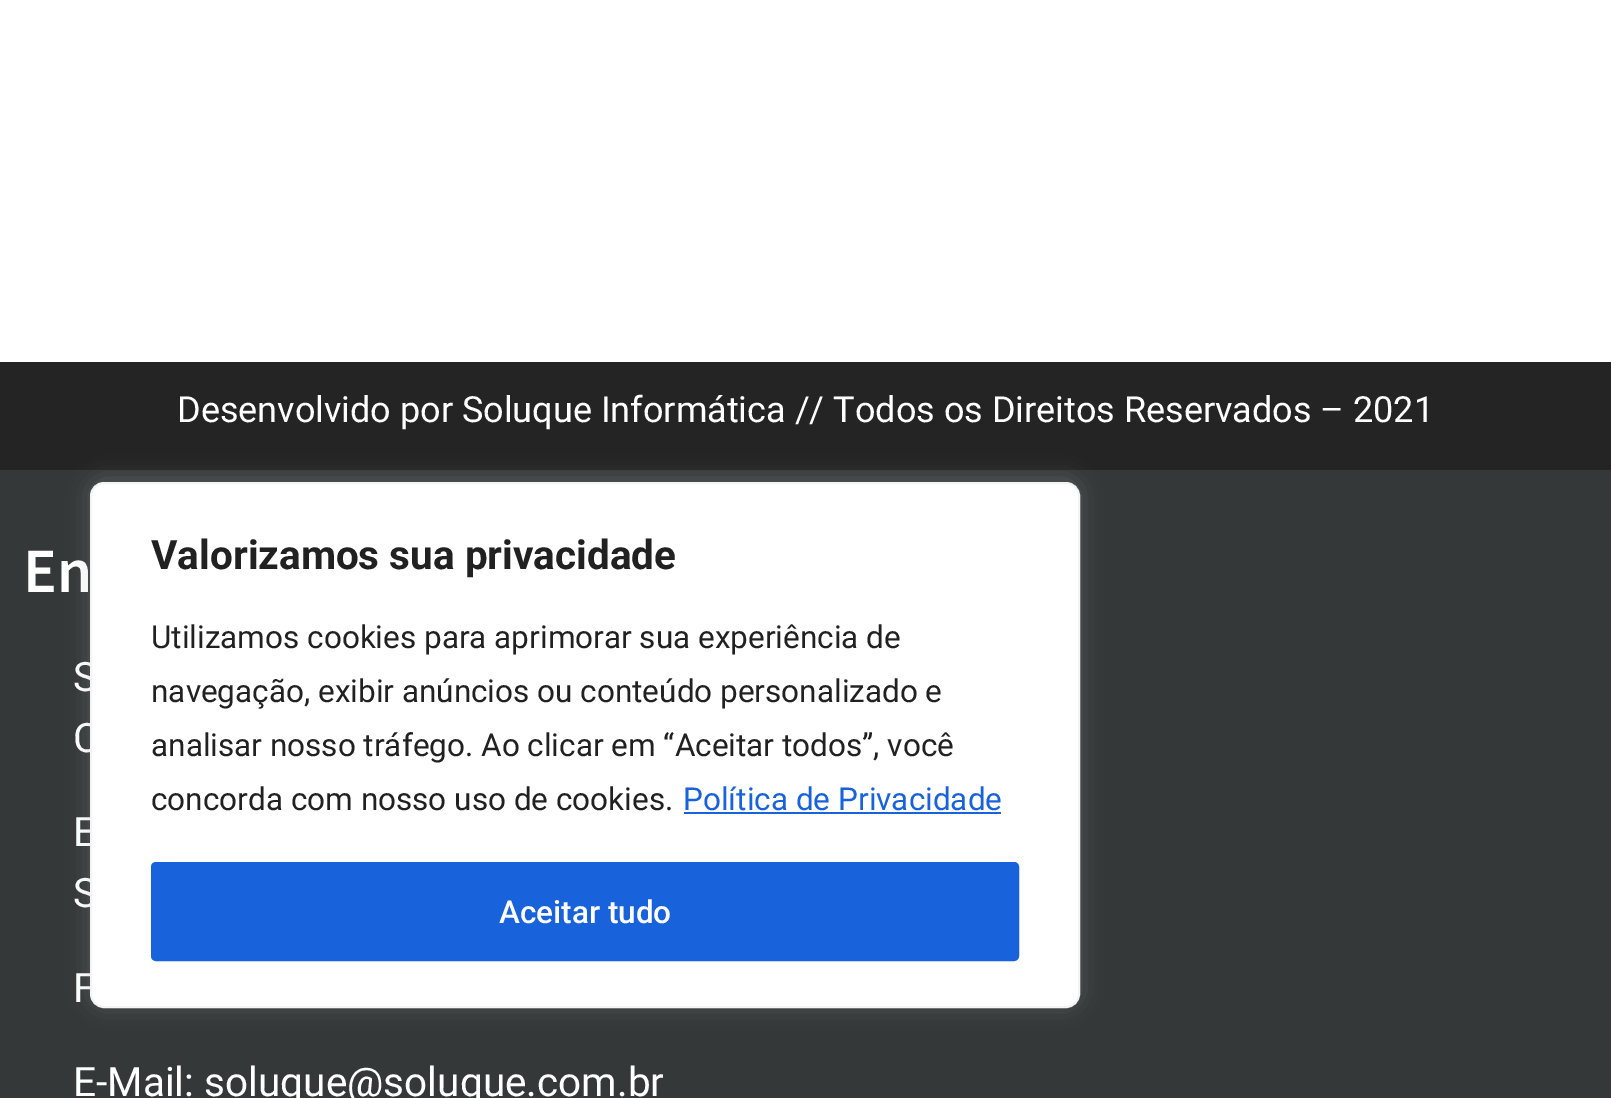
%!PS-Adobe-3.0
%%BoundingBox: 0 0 1611 1098
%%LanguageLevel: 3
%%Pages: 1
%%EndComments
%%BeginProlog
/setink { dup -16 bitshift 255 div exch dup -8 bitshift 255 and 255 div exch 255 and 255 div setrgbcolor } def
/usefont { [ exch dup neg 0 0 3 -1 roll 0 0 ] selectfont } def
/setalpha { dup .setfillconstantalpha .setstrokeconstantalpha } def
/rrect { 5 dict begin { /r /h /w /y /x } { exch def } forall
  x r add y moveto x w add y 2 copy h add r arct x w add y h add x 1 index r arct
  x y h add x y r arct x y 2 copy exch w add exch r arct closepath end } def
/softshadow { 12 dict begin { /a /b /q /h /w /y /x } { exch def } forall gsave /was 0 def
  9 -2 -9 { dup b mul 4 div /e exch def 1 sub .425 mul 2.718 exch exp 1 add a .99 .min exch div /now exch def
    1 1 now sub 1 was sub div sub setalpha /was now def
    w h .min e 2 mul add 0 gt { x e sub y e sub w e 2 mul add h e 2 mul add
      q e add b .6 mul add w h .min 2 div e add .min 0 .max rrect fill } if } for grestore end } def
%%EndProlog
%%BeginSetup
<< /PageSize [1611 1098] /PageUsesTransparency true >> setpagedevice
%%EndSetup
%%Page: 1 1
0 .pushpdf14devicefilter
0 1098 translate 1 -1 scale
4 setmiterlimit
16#FFFFFF setink
0 0 1611 1098 rectfill
16#242424 setink
0 362 1611 108 rectfill
/Roboto-Regular 36 usefont
16#FFFFFF setink
177 422 moveto (Desenvolvido por Soluque Informática // Todos os Direitos Reservados – 2021) show
16#343839 setink
0 470 1611 628 rectfill
/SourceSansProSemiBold-SemiBold 63 usefont
16#FFFFFF setink
23 592 moveto (En) show
/Roboto-Regular 40.5 usefont
[
    [(S) 73 691]
    [(C) 73 752]
    [(E) 73 846]
    [(S) 73 907]
    [(F) 73 1002]
    [(E-Mail: soluque@soluque.com.br) 73 1096]
] { aload pop moveto show } forall
16#ACABAB setink
90 479 990 527 14 11 0.3 softshadow
16#FFFFFF setink
91 483 988 524 13 rrect gsave fill grestore
16#F4F4F4 setink
2 setlinewidth
stroke
/Roboto-Bold 40.5 usefont
16#212121 setink
151 569 moveto (Valorizamos sua privacidade) show
/Roboto-Regular 31.5 usefont
[
    [(Utilizamos cookies para aprimorar sua experiência de) 151 648]
    [(navegação, exibir anúncios ou conteúdo personalizado e) 151 702]
    [(analisar nosso tráfego. Ao clicar em “Aceitar todos”, você) 151 756]
    [(concorda com nosso uso de cookies.) 151 810]
] { aload pop moveto show } forall
16#1863DC setink
683 810 moveto (Política de Privacidade) show
684 812 317 2 rectfill
153.5 864.5 863 94 2.5 rrect gsave fill grestore
5 setlinewidth
stroke
/Roboto-Medium 31.5 usefont
16#FFFFFF setink
499 923 moveto (Aceitar tudo) show
.poppdf14devicefilter showpage
%%EOF
